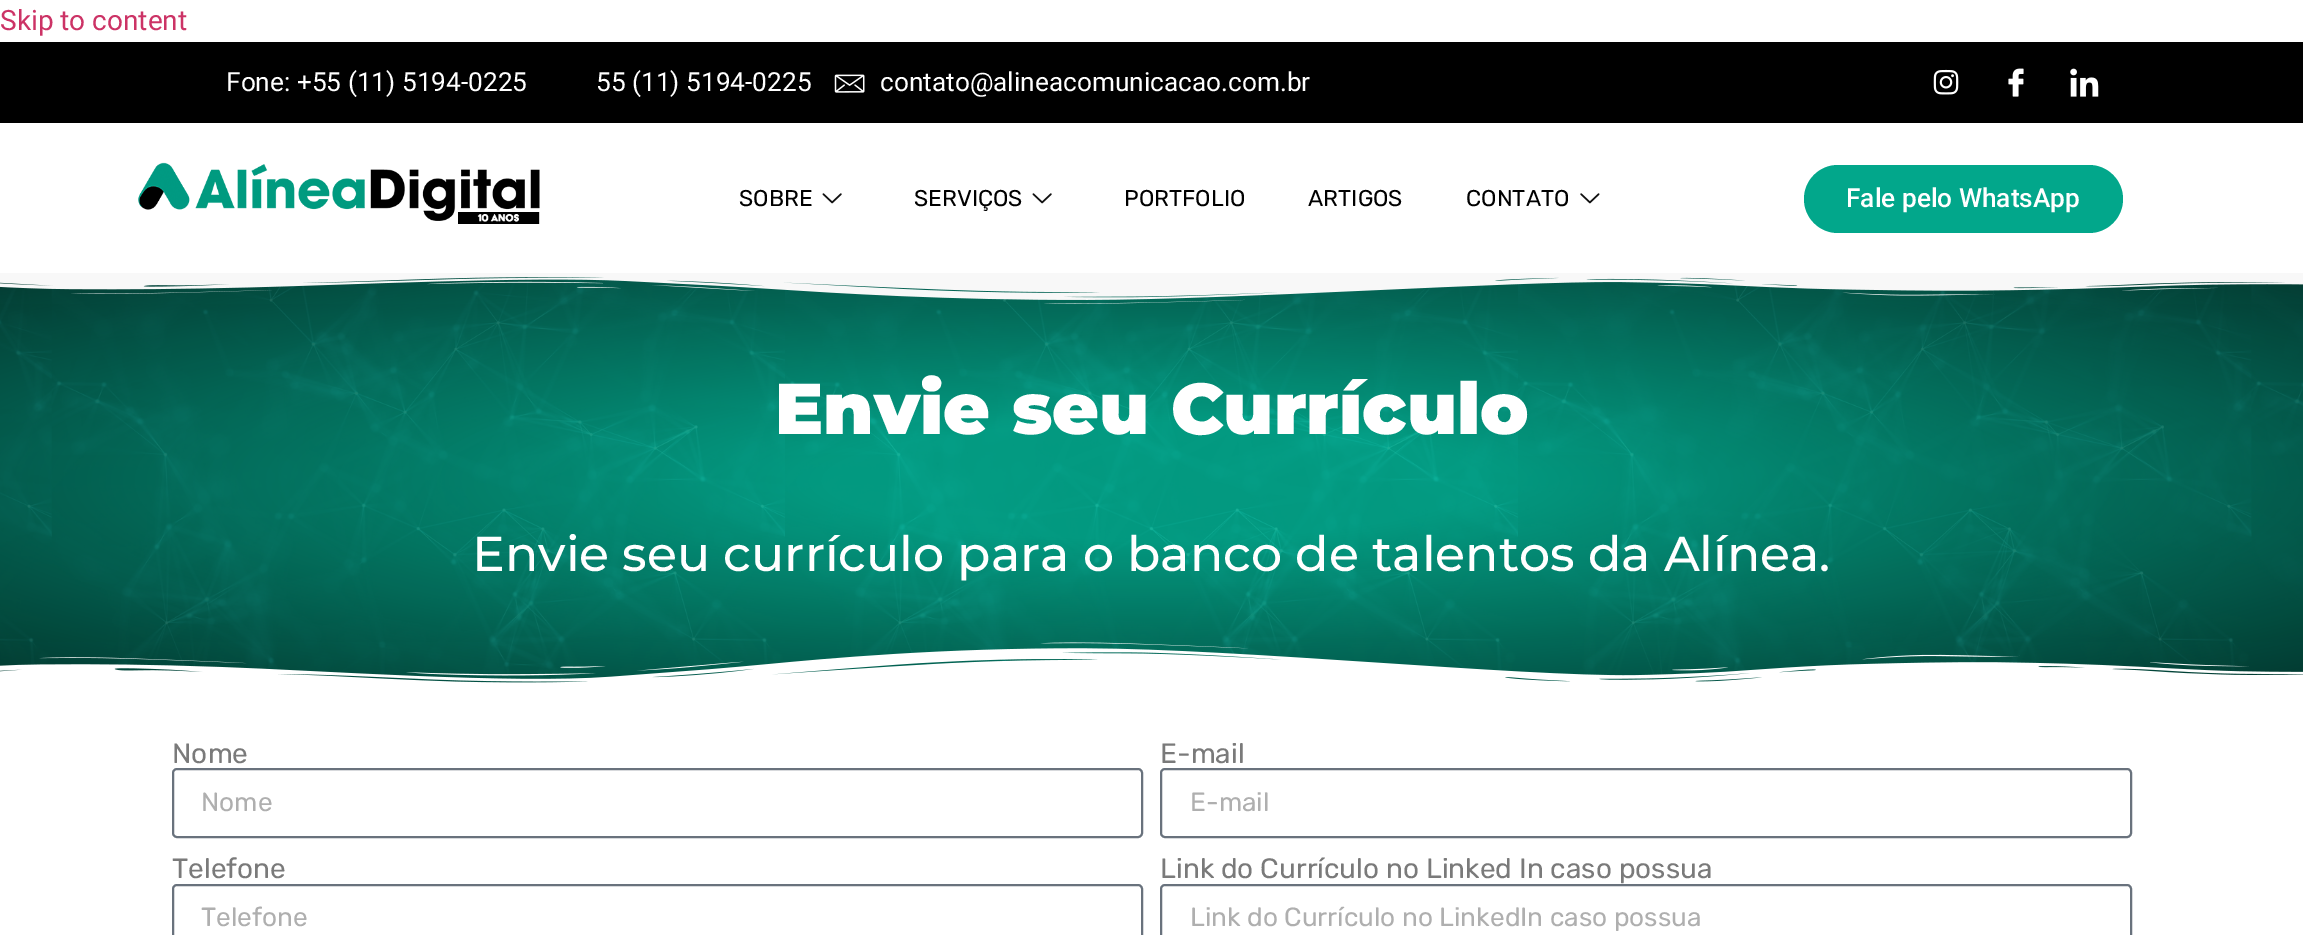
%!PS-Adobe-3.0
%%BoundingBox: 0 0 2303 935
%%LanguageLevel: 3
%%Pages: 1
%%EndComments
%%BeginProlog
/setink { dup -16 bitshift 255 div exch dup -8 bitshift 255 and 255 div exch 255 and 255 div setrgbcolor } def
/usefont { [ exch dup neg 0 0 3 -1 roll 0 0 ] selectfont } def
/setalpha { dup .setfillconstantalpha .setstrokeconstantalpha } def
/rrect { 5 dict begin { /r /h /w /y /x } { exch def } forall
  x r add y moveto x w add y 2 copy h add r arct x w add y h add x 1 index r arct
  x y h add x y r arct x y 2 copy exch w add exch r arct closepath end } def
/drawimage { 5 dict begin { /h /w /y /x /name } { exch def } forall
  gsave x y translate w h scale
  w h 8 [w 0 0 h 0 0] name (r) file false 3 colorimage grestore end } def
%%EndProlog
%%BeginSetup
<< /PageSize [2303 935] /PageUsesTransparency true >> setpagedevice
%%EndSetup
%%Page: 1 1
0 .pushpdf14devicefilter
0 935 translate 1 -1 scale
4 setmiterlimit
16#FFFFFF setink
0 0 2303 935 rectfill
/Roboto-Regular 28 usefont
16#CC3366 setink
0 30 moveto (Skip to content) show
16#000000 setink
0 42 2303 81 rectfill
/Roboto-Regular 26.25 usefont
16#FFFFFF setink
226 91 moveto (Fone: +55 \(11\) 5194-0225) show
596 91 moveto (55 \(11\) 5194-0225) show
(img1.raw) 834 74 31 19 drawimage
880 91 moveto (contato@alineacomunicacao.com.br) show
(img2.raw) 1933 69 26 26 drawimage
(img3.raw) 2008 68 16 29 drawimage
(img4.raw) 2070 68 29 29 drawimage
(img5.raw) 138 162 402 62 drawimage
/Rubik-Regular 22.75 usefont
16#000000 setink
739 206 moveto (SOBRE) show
(img6.raw) 822 193 20 11 drawimage
914 206 moveto (SERVIÇOS) show
(img6.raw) 1032 193 20 11 drawimage
[
    [(PORTFOLIO) 1124 206]
    [(ARTIGOS) 1308 206]
    [(CONTATO) 1466 206]
] { aload pop moveto show } forall
(img7.raw) 1580 193 20 11 drawimage
16#02A78B setink
1804 165 319 68 34 rrect fill
/Roboto-Medium 26.25 usefont
16#FFFFFF setink
1846 207 moveto (Fale pelo WhatsApp) show
(img8.raw) 0 277 2303 406 drawimage
0.9 setalpha
gsave 0 277 moveto 2303 277 lineto 2303 683 lineto 0 683 lineto closepath clip newpath 1152 481 translate 1628 292 scale
<< /ShadingType 3 /ColorSpace /DeviceRGB /Coords [0 0 0 0 0 1] /Extend [true true] /Function << /FunctionType 3 /Domain [0 1] /Functions [<< /FunctionType 2 /Domain [0 1] /C0 [0.008 0.655 0.545] /C1 [0.008 0.655 0.545] /N 1 >> << /FunctionType 2 /Domain [0 1] /C0 [0.008 0.655 0.545] /C1 [0.008 0.235 0.192] /N 1 >>] /Bounds [0.2] /Encode [0 1 0 1] >> >> shfill grestore
1 setalpha
(img9.raw) 0 273 2303 31 drawimage
/Montserrat-Black 71.75 usefont
775 434 moveto (Envie seu Currículo) show
/Montserrat-Medium 49 usefont
472 571 moveto (Envie seu currículo para o banco de talentos da Alínea.) show
(img10.raw) 0 642 2303 46 drawimage
/Rubik-Regular 28 usefont
16#7A7A7A setink
172 763 moveto (Nome) show
16#69727D setink
2 setlinewidth
173 769 969 68 4 rrect stroke
/Rubik-Regular 26.25 usefont
16#AFAFAF setink
201 811 moveto (Nome) show
/Rubik-Regular 28 usefont
16#7A7A7A setink
1160 763 moveto (E-mail) show
16#69727D setink
1161 769 970 68 4 rrect stroke
/Rubik-Regular 26.25 usefont
16#AFAFAF setink
1190 811 moveto (E-mail) show
/Rubik-Regular 28 usefont
16#7A7A7A setink
172 878 moveto (Telefone) show
16#69727D setink
173 885 969 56 4 rrect stroke
/Rubik-Regular 26.25 usefont
16#AFAFAF setink
201 926 moveto (Telefone) show
/Rubik-Regular 28 usefont
16#7A7A7A setink
1160 878 moveto (Link do Currículo no Linked In caso possua) show
16#69727D setink
1161 885 970 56 4 rrect stroke
/Rubik-Regular 26.25 usefont
16#AFAFAF setink
1190 926 moveto (Link do Currículo no LinkedIn caso possua) show
.poppdf14devicefilter showpage
%%EOF
